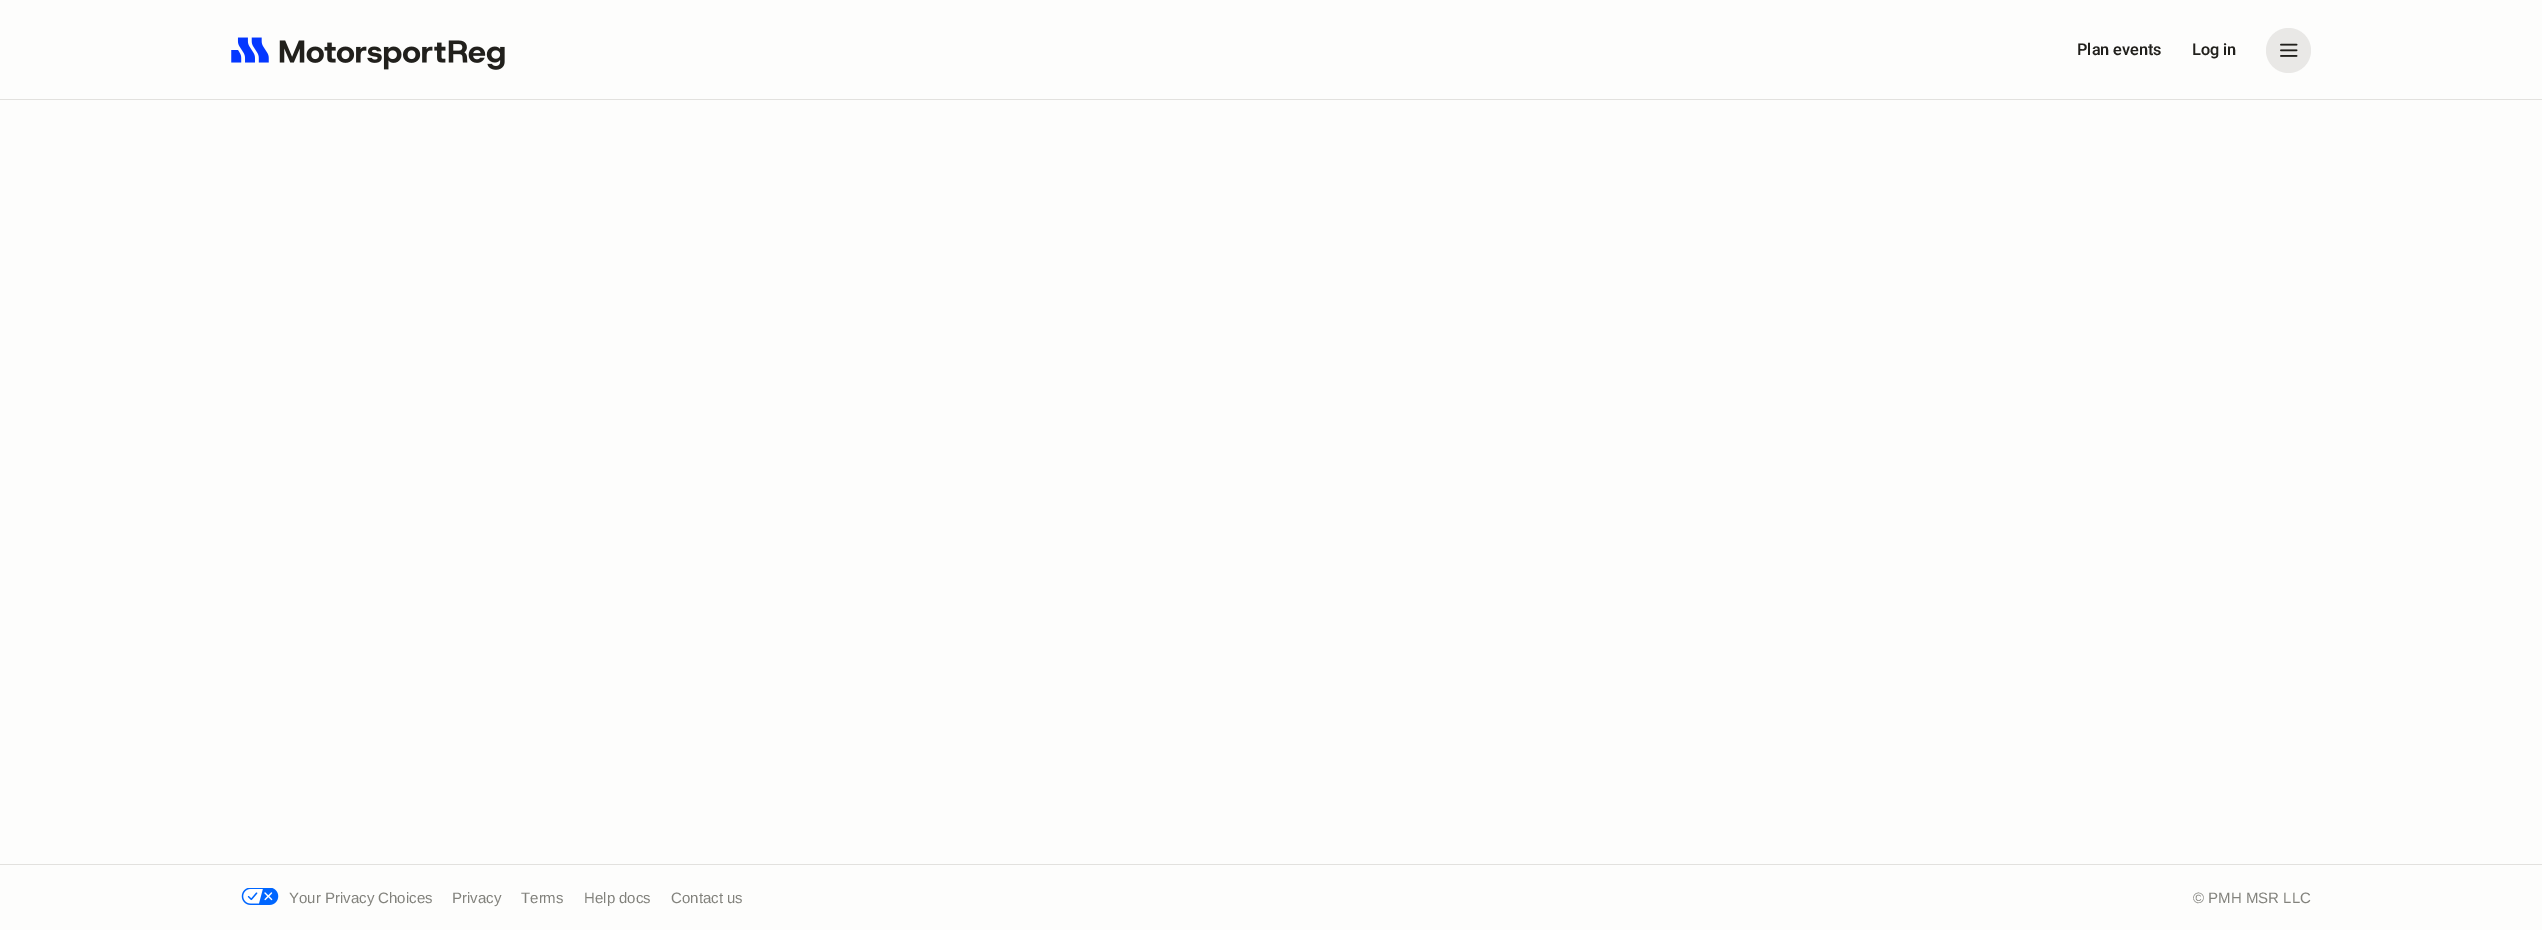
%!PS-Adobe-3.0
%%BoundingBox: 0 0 2542 930
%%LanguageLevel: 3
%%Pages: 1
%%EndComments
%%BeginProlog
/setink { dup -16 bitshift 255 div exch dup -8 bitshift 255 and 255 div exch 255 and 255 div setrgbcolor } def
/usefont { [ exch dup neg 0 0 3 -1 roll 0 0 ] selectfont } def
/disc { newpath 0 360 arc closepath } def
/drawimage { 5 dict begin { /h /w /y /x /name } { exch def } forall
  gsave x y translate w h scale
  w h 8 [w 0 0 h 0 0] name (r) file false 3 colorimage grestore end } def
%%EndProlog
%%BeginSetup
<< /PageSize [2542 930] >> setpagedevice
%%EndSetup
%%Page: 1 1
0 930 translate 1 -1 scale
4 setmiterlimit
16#FDFDFC setink
0 0 2542 930 rectfill
16#E2E1DE setink
0 99 2542 1 rectfill
(img1.raw) 231 37 274 33 drawimage
/Roboto-Medium 16.25 usefont
16#21201C setink
2077 55 moveto (Plan events) show
2192 55 moveto (Log in) show
16#E9E8E6 setink
2288.5 50.5 22.5 disc fill
(img2.raw) 2280 43 18 14 drawimage
16#E2E1DE setink
0 864 2542 1 rectfill
(img3.raw) 241 888 38 17 drawimage
/LiberationSans-Regular 15 usefont
16#82827C setink
[
    [(Your Privacy Choices) 289 903]
    [(Privacy) 452 903]
    [(Terms) 521 903]
    [(Help docs) 584 903]
    [(Contact us) 671 903]
    [(© PMH MSR LLC) 2193 903]
] { aload pop moveto show } forall
showpage
%%EOF
